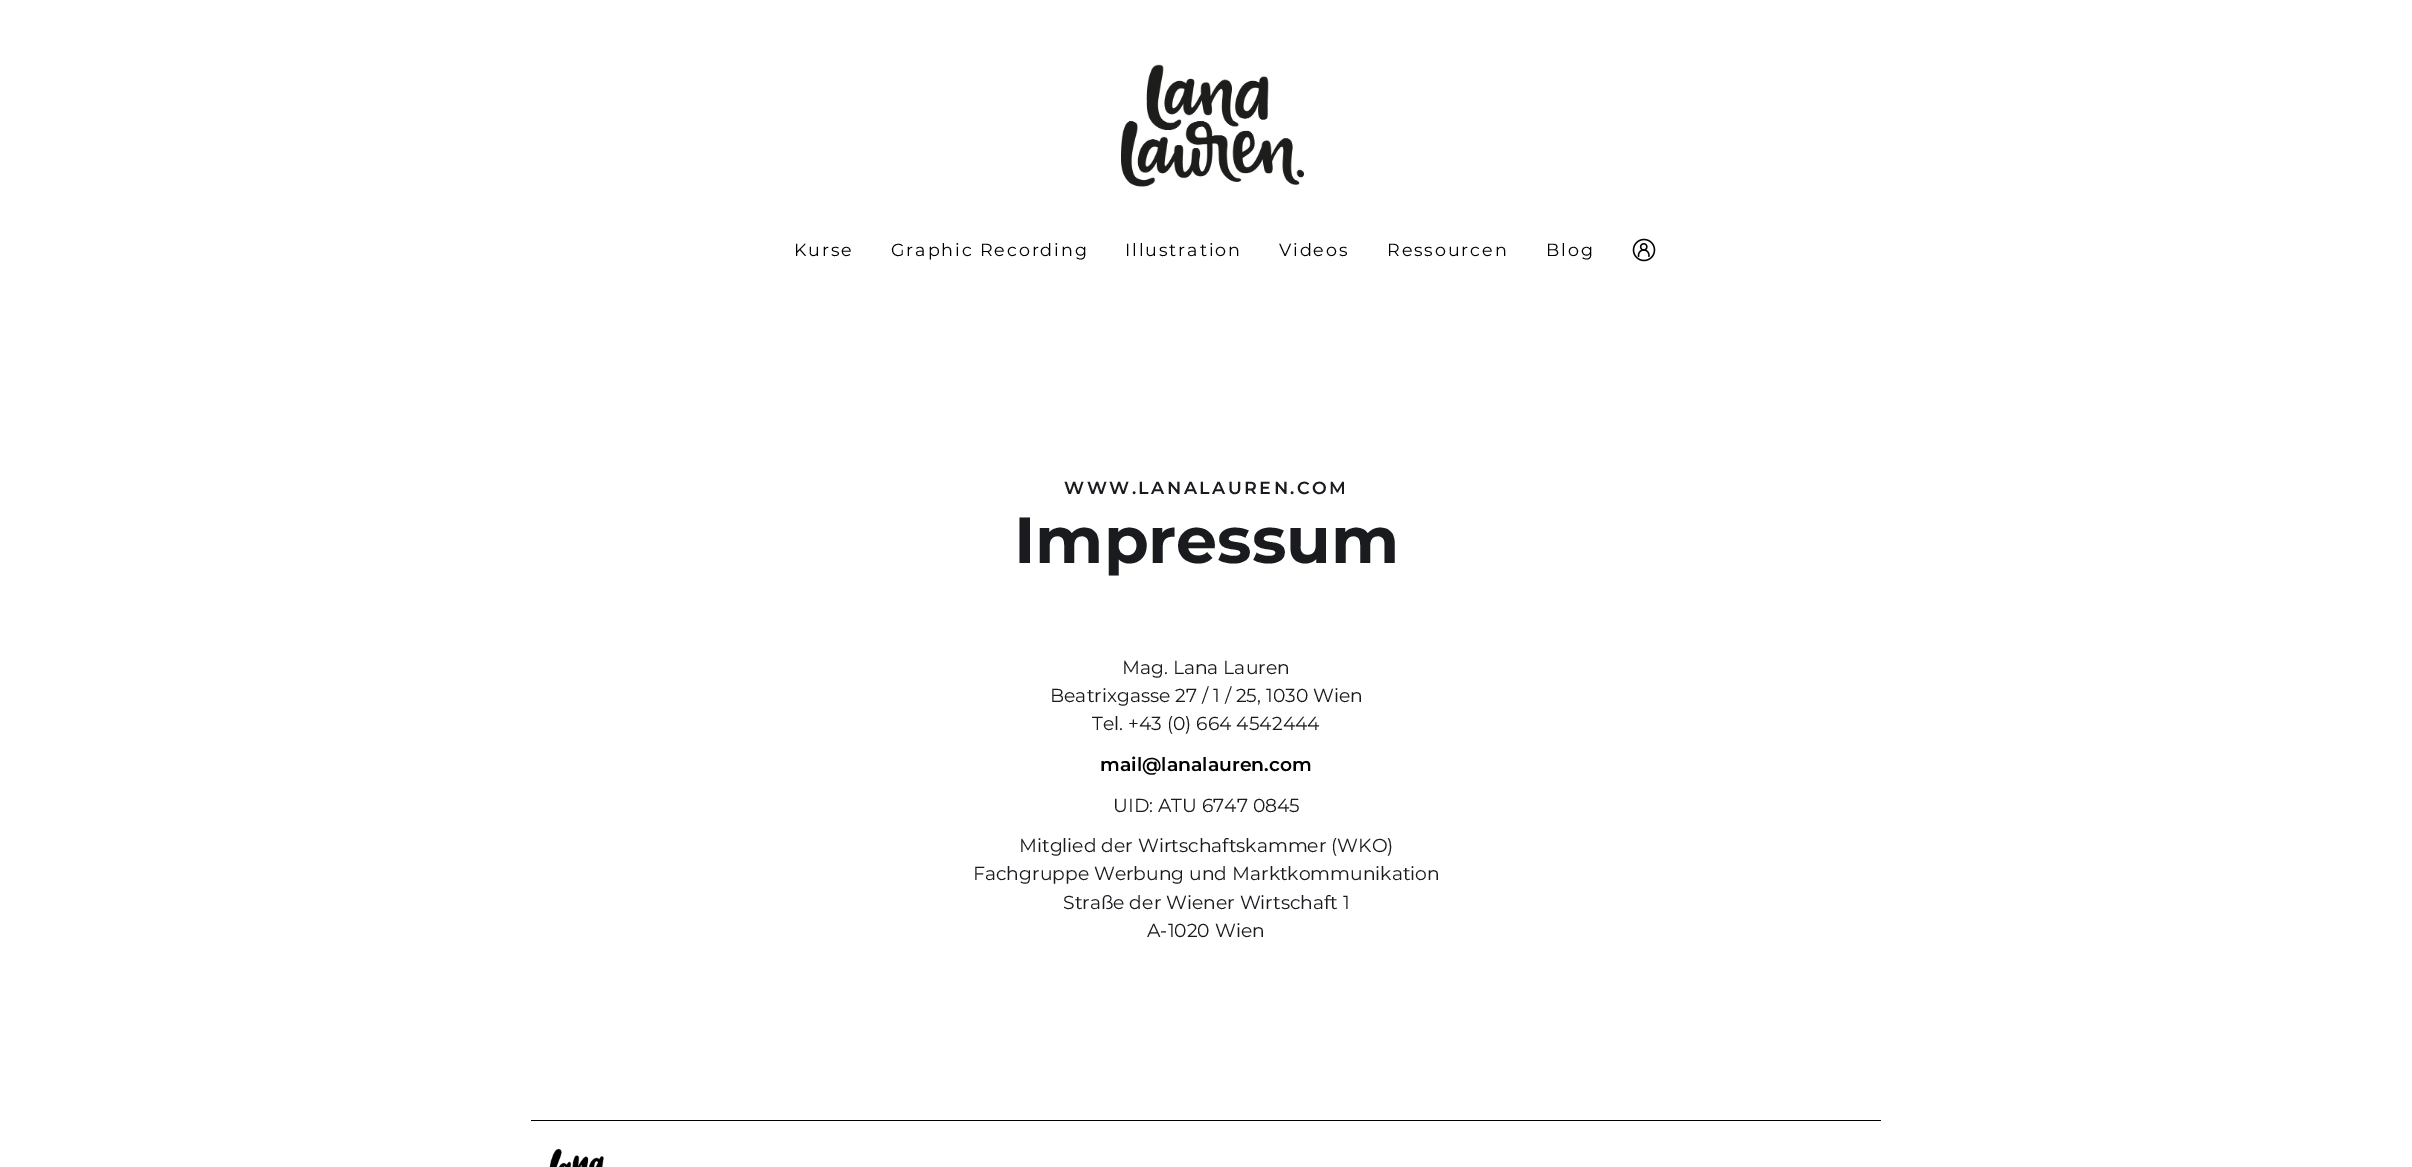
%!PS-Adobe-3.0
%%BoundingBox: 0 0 2412 1167
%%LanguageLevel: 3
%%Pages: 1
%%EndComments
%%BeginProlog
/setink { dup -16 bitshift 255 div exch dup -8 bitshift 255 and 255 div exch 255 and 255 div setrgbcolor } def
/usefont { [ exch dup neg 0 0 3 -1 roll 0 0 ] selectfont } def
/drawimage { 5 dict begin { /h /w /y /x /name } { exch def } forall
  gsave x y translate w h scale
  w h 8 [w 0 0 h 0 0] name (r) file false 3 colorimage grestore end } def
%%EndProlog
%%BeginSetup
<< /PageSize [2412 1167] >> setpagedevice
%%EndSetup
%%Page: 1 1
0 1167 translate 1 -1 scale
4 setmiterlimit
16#FFFFFF setink
0 0 2412 1167 rectfill
(img1.raw) 1121 64 183 123 drawimage
/Montserrat-Regular 17.5 usefont
16#000000 setink
794 256 moveto 1.9 0 (Kurse) ashow
891 256 moveto 1.9 0 (Graphic Recording) ashow
1125 256 moveto 1.9 0 (Illustration) ashow
1279 256 moveto 1.9 0 (Videos) ashow
1387 256 moveto 1.9 0 (Ressourcen) ashow
1546 256 moveto 1.9 0 (Blog) ashow
(img2.raw) 1632 238 24 24 drawimage
/Montserrat-SemiBold 17.5 usefont
16#1A1B1F setink
1064 494 moveto 2.5 0 (WWW.LANALAUREN.COM) ashow
/Montserrat-Bold 65 usefont
1014 563 moveto (Impressum) show
/Montserrat-Regular 18.75 usefont
[
    [(Mag. Lana Lauren) 1122 674]
    [(Beatrixgasse 27 / 1 / 25, 1030 Wien) 1050 702]
    [(Tel. +43 \(0\) 664 4542444) 1092 730]
] { aload pop moveto show } forall
/Montserrat-SemiBold 18.75 usefont
16#000000 setink
1100 771 moveto (mail@lanalauren.com) show
/Montserrat-Regular 18.75 usefont
16#1A1B1F setink
[
    [(UID: ATU 6747 0845) 1113 812]
    [(Mitglied der Wirtschaftskammer \(WKO\)) 1019 852]
    [(Fachgruppe Werbung und Marktkommunikation) 973 880]
    [(Straße der Wiener Wirtschaft 1) 1063 909]
    [(A-1020 Wien) 1147 937]
] { aload pop moveto show } forall
16#000000 setink
531 1120 1350 1 rectfill
(img3.raw) 549 1149 55 18 drawimage
showpage
%%EOF
